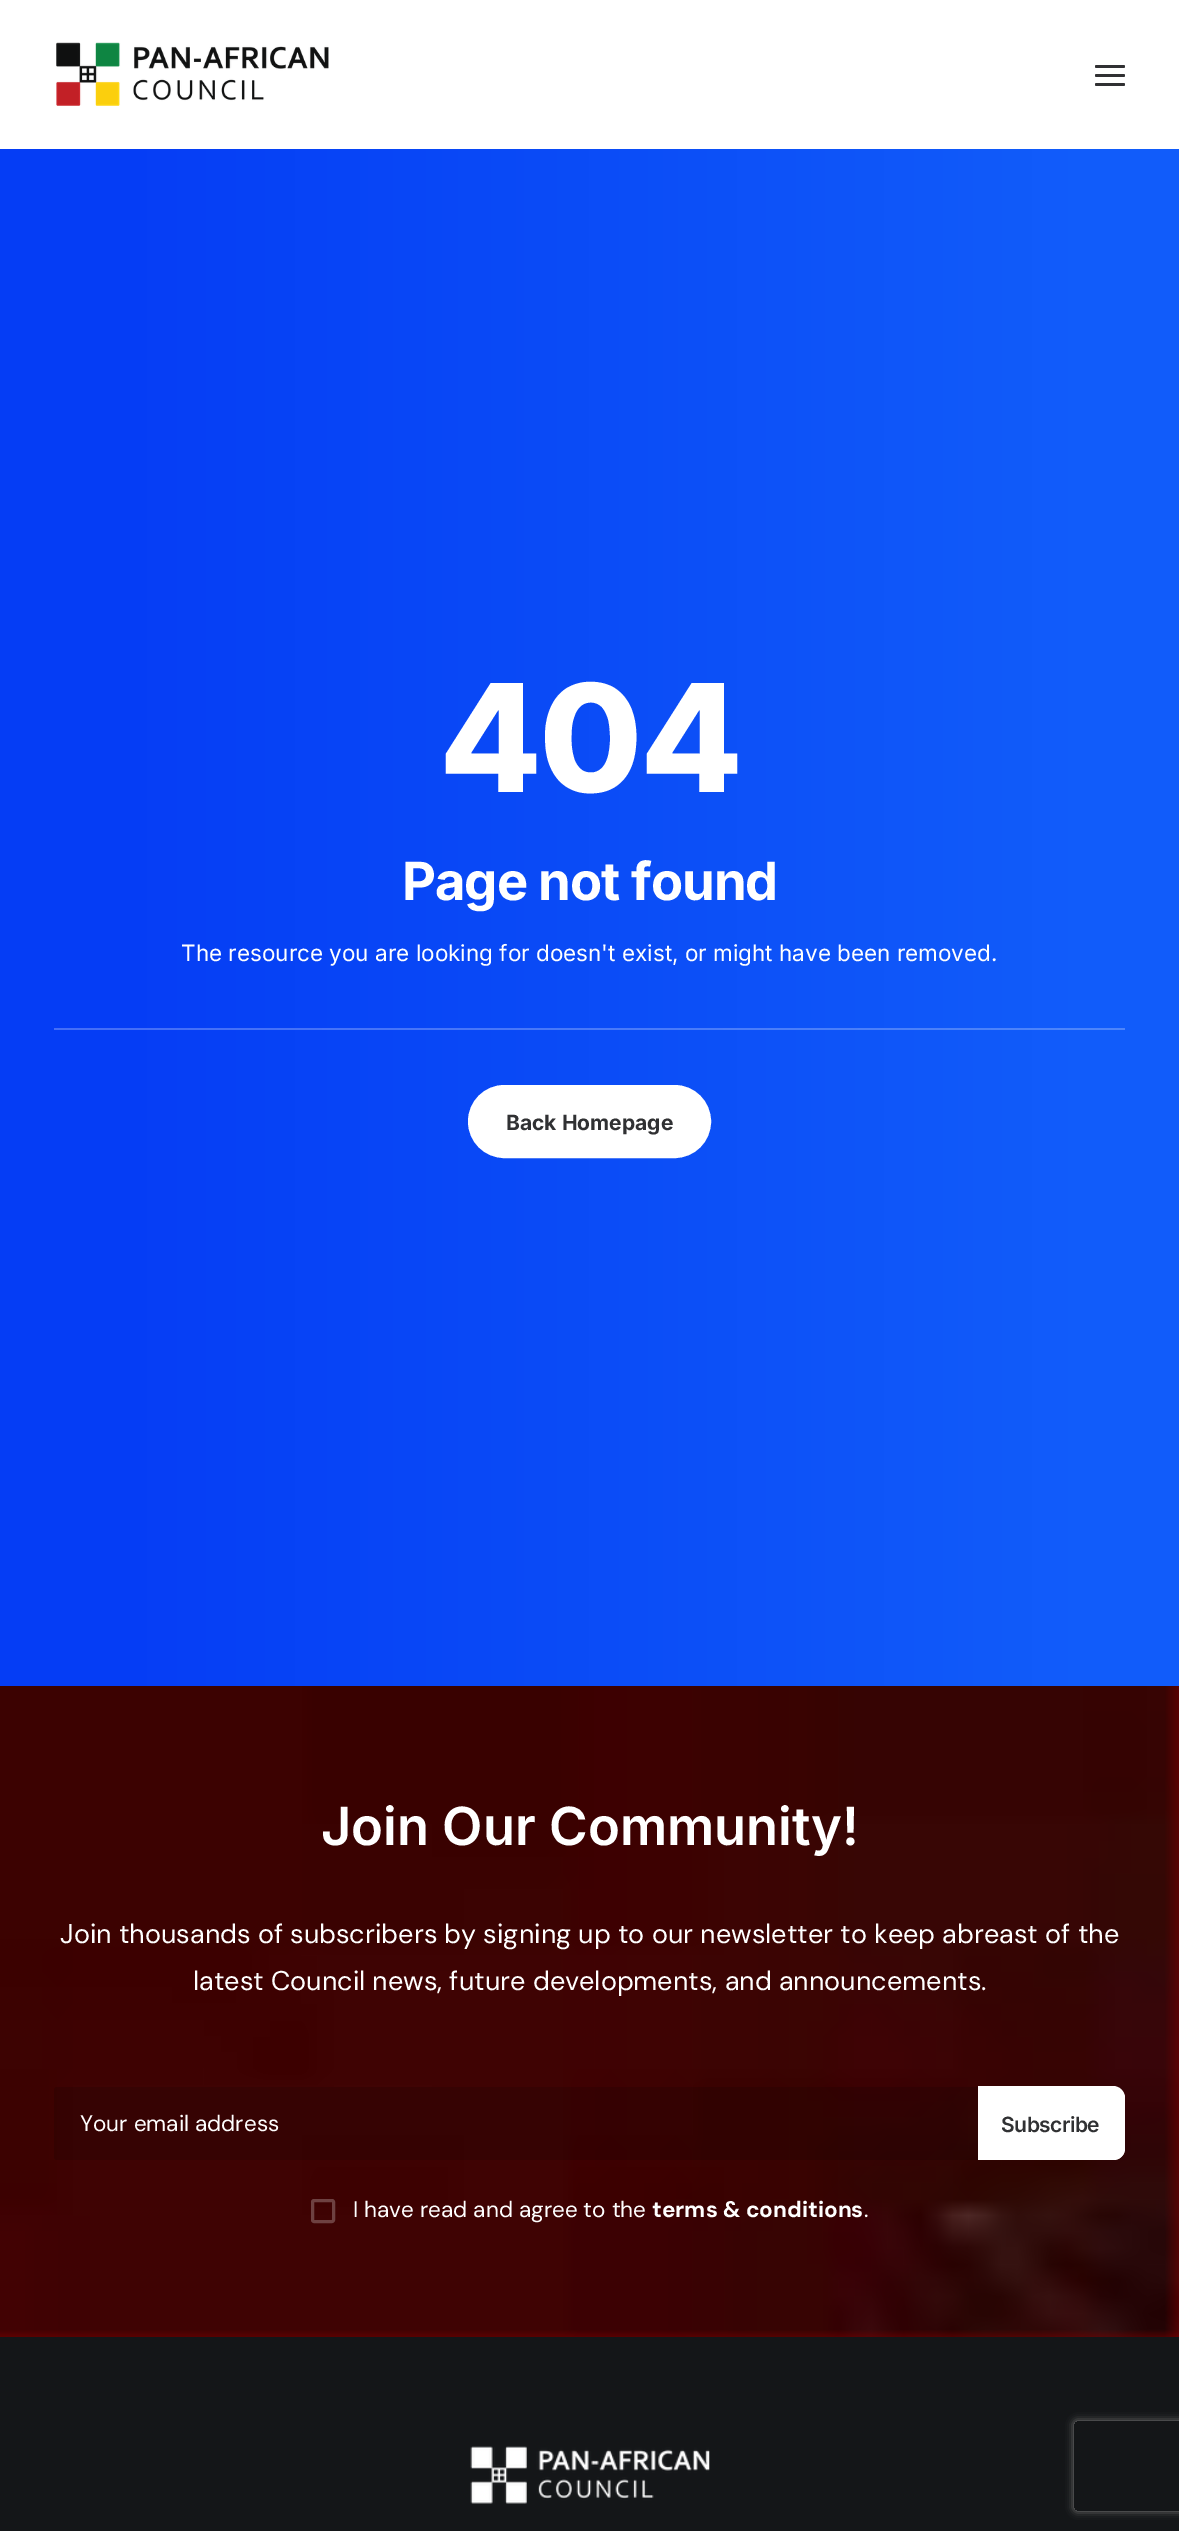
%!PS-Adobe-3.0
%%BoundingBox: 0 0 1179 2531
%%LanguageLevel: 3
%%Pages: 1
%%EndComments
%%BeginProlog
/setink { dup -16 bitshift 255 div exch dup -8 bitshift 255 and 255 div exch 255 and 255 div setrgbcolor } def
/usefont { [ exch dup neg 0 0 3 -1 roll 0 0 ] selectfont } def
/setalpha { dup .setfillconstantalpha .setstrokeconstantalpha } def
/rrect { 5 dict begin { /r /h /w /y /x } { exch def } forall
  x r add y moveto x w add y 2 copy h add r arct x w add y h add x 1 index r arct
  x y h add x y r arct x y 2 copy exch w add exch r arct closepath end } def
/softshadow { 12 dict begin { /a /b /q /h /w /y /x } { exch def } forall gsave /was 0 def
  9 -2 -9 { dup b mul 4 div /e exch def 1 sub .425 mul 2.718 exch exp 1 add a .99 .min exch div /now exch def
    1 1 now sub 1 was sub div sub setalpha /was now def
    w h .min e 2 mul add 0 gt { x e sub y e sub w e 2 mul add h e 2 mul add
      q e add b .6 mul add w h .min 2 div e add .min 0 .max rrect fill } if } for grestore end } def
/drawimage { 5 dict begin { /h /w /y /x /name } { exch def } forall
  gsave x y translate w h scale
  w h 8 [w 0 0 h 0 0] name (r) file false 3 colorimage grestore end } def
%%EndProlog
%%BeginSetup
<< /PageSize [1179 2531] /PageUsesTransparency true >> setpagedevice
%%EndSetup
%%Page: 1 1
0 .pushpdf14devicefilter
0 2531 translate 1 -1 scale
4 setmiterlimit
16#141618 setink
0 0 1179 2531 rectfill
16#FFFFFF setink
0 0 1179 149 rectfill
(img1.raw) 56 42 273 64 drawimage
16#303133 setink
1095 74 30 3 1.5 rrect fill
1095 65 30 3 1.5 rrect fill
1095 83 30 3 1.5 rrect fill
gsave 0 149 moveto 1179 149 lineto 1179 1686 lineto 0 1686 lineto closepath clip newpath
<< /ShadingType 2 /ColorSpace /DeviceRGB /Coords [1179 917 0 917] /Extend [true true] /Function << /FunctionType 3 /Domain [0 1] /Functions [<< /FunctionType 2 /Domain [0 1] /C0 [0.067 0.361 0.98] /C1 [0.067 0.361 0.98] /N 1 >> << /FunctionType 2 /Domain [0 1] /C0 [0.067 0.361 0.98] /C1 [0.02 0.239 0.961] /N 1 >> << /FunctionType 2 /Domain [0 1] /C0 [0.02 0.239 0.961] /C1 [0.02 0.239 0.961] /N 1 >>] /Bounds [0.09 0.91] /Encode [0 1 0 1 0 1] >> >> shfill grestore
gsave 54 1028 moveto 1125 1028 lineto 1125 1030 lineto 54 1030 lineto closepath clip newpath
<< /ShadingType 2 /ColorSpace /DeviceRGB /Coords [1179 917 0 917] /Extend [true true] /Function << /FunctionType 3 /Domain [0 1] /Functions [<< /FunctionType 2 /Domain [0 1] /C0 [0.302 0.522 0.984] /C1 [0.302 0.522 0.984] /N 1 >> << /FunctionType 2 /Domain [0 1] /C0 [0.302 0.522 0.984] /C1 [0.267 0.431 0.973] /N 1 >> << /FunctionType 2 /Domain [0 1] /C0 [0.267 0.431 0.973] /C1 [0.267 0.431 0.973] /N 1 >>] /Bounds [0.09 0.91] /Encode [0 1 0 1 0 1] >> >> shfill grestore
/Inter-ExtraBold 150 usefont
16#FFFFFF setink
439 792 moveto -3 0 (404) ashow
/Inter-Bold 52.5 usefont
402 900 moveto -1 0 (Page not found) ashow
/Inter-Regular 22.5 usefont
181 961 moveto (The resource you are looking for doesn't exist, or might have been removed.) show
469.5 1086.5 240 70 35 rrect gsave fill grestore
3 setlinewidth
stroke
/Inter-Bold 21 usefont
16#303133 setink
506 1130 moveto (Back Homepage) show
16#7C0000 setink
0 1686 1179 651 rectfill
(img2.raw) 0 1686 1179 651 drawimage
/Inter-SemiBold 52.5 usefont
16#FFFFFF setink
321 1845 moveto (Join Our Community!) show
/DMSans-Regular 27 usefont
60 1943 moveto (Join thousands of subscribers by signing up to our newsletter to keep abreast of the) show
193 1990 moveto (latest Council news, future developments, and announcements.) show
0.15 setalpha
16#000000 setink
57 2087 moveto 978 2087 lineto 978 2160 lineto 57 2160 lineto 55.5 2160 54 2158.5 54 2157 curveto 54 2090 lineto 54 2088.5 55.5 2087 57 2087 curveto closepath fill
/DMSans-Regular 22.5 usefont
1 setalpha
16#FFFFFF setink
80 2131 moveto (Your email address) show
978 2087 moveto 1113 2087 lineto 1119.5 2087 1125 2092.5 1125 2099 curveto 1125 2148 lineto 1125 2154.5 1119.5 2160 1113 2160 curveto 978 2160 lineto closepath fill
978 2086 moveto 1113 2086 lineto 1120 2086 1125 2092 1125 2098 curveto 1125 2148 lineto 1125 2155 1120 2160 1113 2160 curveto 978 2160 lineto closepath 978 2090 moveto 1113 2090 lineto 1118 2090 1122 2094 1122 2098 curveto 1122 2148 lineto 1122 2153 1118 2157 1113 2157 curveto 978 2157 lineto closepath eofill
/Inter-SemiBold 21 usefont
16#303133 setink
1001 2132 moveto -0.5 0 (Subscribe) ashow
16#6E4141 setink
312.5 2200.5 21 21 1.5 rrect stroke
/DMSans-Regular 22.5 usefont
16#FFFFFF setink
353 2217 moveto (I have read and agree to the) show
/DMSans-Bold 22.5 usefont
652 2217 moveto (terms & conditions) show
/DMSans-Regular 22.5 usefont
864 2217 moveto (.) show
(img3.raw) 470 2446 240 58 drawimage
gsave
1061 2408 moveto 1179 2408 lineto 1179 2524 lineto 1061 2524 lineto closepath 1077 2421 moveto 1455 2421 lineto 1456.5 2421 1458 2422.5 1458 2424 curveto 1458 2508 lineto 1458 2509.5 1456.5 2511 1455 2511 curveto 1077 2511 lineto 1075.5 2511 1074 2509.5 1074 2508 curveto 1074 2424 lineto 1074 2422.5 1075.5 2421 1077 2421 curveto closepath eoclip newpath
16#808080 setink
1074 2421 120 90 3 4 1 softshadow
grestore
.poppdf14devicefilter showpage
%%EOF
